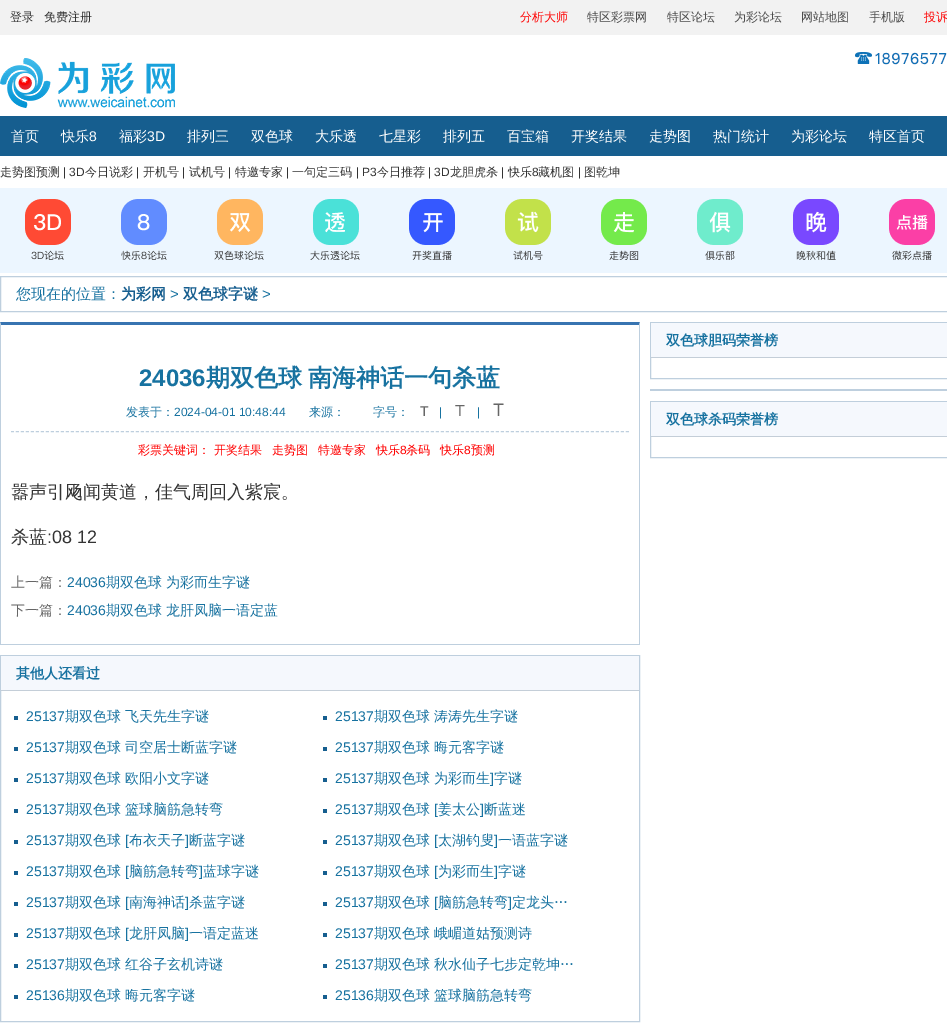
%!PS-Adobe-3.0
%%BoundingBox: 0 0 947 1027
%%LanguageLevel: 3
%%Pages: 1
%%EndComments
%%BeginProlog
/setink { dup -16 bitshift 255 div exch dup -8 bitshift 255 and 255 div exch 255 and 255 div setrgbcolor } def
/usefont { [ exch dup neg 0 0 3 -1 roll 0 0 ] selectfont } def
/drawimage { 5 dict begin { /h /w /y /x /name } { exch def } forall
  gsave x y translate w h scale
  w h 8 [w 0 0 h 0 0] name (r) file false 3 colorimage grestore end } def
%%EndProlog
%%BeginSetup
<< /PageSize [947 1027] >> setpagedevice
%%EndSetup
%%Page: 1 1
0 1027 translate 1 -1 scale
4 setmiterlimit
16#FFFFFF setink
0 0 947 1027 rectfill
16#F2F2F2 setink
0 0 947 35 rectfill
/WenQuanYiZenHei-Medium 12 usefont
16#333333 setink
10 21 moveto (登录) show
44 21 moveto (免费注册) show
16#FF0000 setink
520 21 moveto (分析大师) show
16#4D4D4D setink
[
    [(特区彩票网) 587 21]
    [(特区论坛) 667 21]
    [(为彩论坛) 734 21]
    [(网站地图) 801 21]
    [(手机版) 869 21]
] { aload pop moveto show } forall
16#FF0000 setink
924 21 moveto (投诉) show
(img1.raw) 0 58 175 50 drawimage
(img2.raw) 855 52 92 13 drawimage
16#165E8F setink
0 116 947 40 rectfill
/WenQuanYiZenHei-Medium 14 usefont
16#FFFFFF setink
11 141 moveto (首页) show
61 141 moveto (快乐) show
/LiberationSans-Regular 14 usefont
89 141 moveto (8) show
/WenQuanYiZenHei-Medium 14 usefont
119 141 moveto (福彩) show
/LiberationSans-Regular 14 usefont
147 141 moveto (3D) show
/WenQuanYiZenHei-Medium 14 usefont
[
    [(排列三) 187 141]
    [(双色球) 251 141]
    [(大乐透) 315 141]
    [(七星彩) 379 141]
    [(排列五) 443 141]
    [(百宝箱) 507 141]
    [(开奖结果) 571 141]
    [(走势图) 649 141]
    [(热门统计) 713 141]
    [(为彩论坛) 791 141]
    [(特区首页) 869 141]
] { aload pop moveto show } forall
/WenQuanYiZenHei-Medium 12 usefont
16#333333 setink
0 176 moveto (走势图预测) show
/LiberationSans-Regular 12 usefont
63 176 moveto (| 3D) show
/WenQuanYiZenHei-Medium 12 usefont
85 176 moveto (今日说彩) show
/LiberationSans-Regular 12 usefont
136 176 moveto (|) show
/WenQuanYiZenHei-Medium 12 usefont
143 176 moveto (开机号) show
/LiberationSans-Regular 12 usefont
182 176 moveto (|) show
/WenQuanYiZenHei-Medium 12 usefont
189 176 moveto (试机号) show
/LiberationSans-Regular 12 usefont
228 176 moveto (|) show
/WenQuanYiZenHei-Medium 12 usefont
235 176 moveto (特邀专家) show
/LiberationSans-Regular 12 usefont
286 176 moveto (|) show
/WenQuanYiZenHei-Medium 12 usefont
292 176 moveto (一句定三码) show
/LiberationSans-Regular 12 usefont
356 176 moveto (| P3) show
/WenQuanYiZenHei-Medium 12 usefont
377 176 moveto (今日推荐) show
/LiberationSans-Regular 12 usefont
428 176 moveto (| 3D) show
/WenQuanYiZenHei-Medium 12 usefont
450 176 moveto (龙胆虎杀) show
/LiberationSans-Regular 12 usefont
501 176 moveto (|) show
/WenQuanYiZenHei-Medium 12 usefont
508 176 moveto (快乐) show
/LiberationSans-Regular 12 usefont
532 176 moveto (8) show
/WenQuanYiZenHei-Medium 12 usefont
538 176 moveto (藏机图) show
/LiberationSans-Regular 12 usefont
578 176 moveto (|) show
/WenQuanYiZenHei-Medium 12 usefont
584 176 moveto (图乾坤) show
16#ECF6FF setink
0 188 947 85 rectfill
(img3.raw) 25 199 46 61 drawimage
(img4.raw) 121 199 46 61 drawimage
(img5.raw) 214 199 50 61 drawimage
(img6.raw) 310 199 50 61 drawimage
(img7.raw) 409 199 46 61 drawimage
(img8.raw) 505 199 46 61 drawimage
(img9.raw) 601 199 46 61 drawimage
(img10.raw) 697 199 46 61 drawimage
(img11.raw) 793 199 46 61 drawimage
(img12.raw) 889 199 46 61 drawimage
16#BECFDE setink
0.5 276.5 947 35 rectstroke
/WenQuanYiZenHei-Medium 15 usefont
16#1772A0 setink
16 299 moveto (您现在的位置：) show
/WenQuanYiZenHei-Bold 15 usefont
16#165E8F setink
121 299 moveto (为彩网) show
/LiberationSans-Regular 15 usefont
16#1772A0 setink
170 299 moveto (>) show
/WenQuanYiZenHei-Bold 15 usefont
16#165E8F setink
183 299 moveto (双色球字谜) show
/LiberationSans-Regular 15 usefont
16#1772A0 setink
262 299 moveto (>) show
16#3874B1 setink
0 322 moveto 640 322 lineto 639 325 lineto 1 325 lineto closepath fill
16#BECFDE setink
640 322 moveto 640 645 lineto 639 644 lineto 639 325 lineto closepath fill
0 644 640 1 rectfill
0 645 moveto 0 322 lineto 1 325 lineto 1 644 lineto closepath fill
[3 2] 0 setdash
11 431.5 moveto 629 431.5 lineto stroke
/LiberationSans-Bold 24 usefont
16#1772A0 setink
139 386 moveto (24036) show
/WenQuanYiZenHei-Bold 24 usefont
206 386 moveto -1 0 32 (期双色球 南海神话一句杀蓝) widthshow
/WenQuanYiZenHei-Medium 12 usefont
126 416 moveto (发表于：) show
/LiberationSans-Regular 12 usefont
174 416 moveto (2024-04-01 10:48:44) show
/WenQuanYiZenHei-Medium 12 usefont
309 416 moveto (来源：) show
373 416 moveto (字号：) show
/LiberationSans-Regular 14 usefont
16#666666 setink
420 416 moveto (T) show
/LiberationSans-Regular 12 usefont
16#1772A0 setink
439 416 moveto (|) show
/LiberationSans-Regular 16 usefont
16#666666 setink
455 416 moveto (T) show
/LiberationSans-Regular 12 usefont
16#1772A0 setink
477 416 moveto (|) show
/LiberationSans-Regular 18 usefont
16#666666 setink
493 416 moveto (T) show
/WenQuanYiZenHei-Medium 12 usefont
16#FF0000 setink
[
    [(彩票关键词： 开奖结果) 138 454]
    [(走势图) 272 454]
    [(特邀专家) 318 454]
    [(快乐) 376 454]
] { aload pop moveto show } forall
/LiberationSans-Regular 12 usefont
400 454 moveto (8) show
/WenQuanYiZenHei-Medium 12 usefont
406 454 moveto (杀码) show
440 454 moveto (快乐) show
/LiberationSans-Regular 12 usefont
464 454 moveto (8) show
/WenQuanYiZenHei-Medium 12 usefont
471 454 moveto (预测) show
/WenQuanYiZenHei-Medium 18 usefont
16#333333 setink
11 498 moveto (嚣声引飏闻黄道，佳气周回入紫宸。) show
11 543 moveto (杀蓝) show
/LiberationSans-Regular 18 usefont
47 543 moveto (:08 12) show
/WenQuanYiZenHei-Medium 14 usefont
16#666666 setink
11 587 moveto (上一篇：) show
/LiberationSans-Regular 14 usefont
16#1772A0 setink
67 587 moveto (24036) show
/WenQuanYiZenHei-Medium 14 usefont
106 587 moveto (期双色球 为彩而生字谜) show
16#666666 setink
11 615 moveto (下一篇：) show
/LiberationSans-Regular 14 usefont
16#1772A0 setink
67 615 moveto (24036) show
/WenQuanYiZenHei-Medium 14 usefont
106 615 moveto (期双色球 龙肝凤脑一语定蓝) show
16#BECFDE setink
[] 0 setdash
0.5 655.5 639 366 rectstroke
16#F5F8FD setink
1 656 638 34 rectfill
16#C4CED8 setink
1 690 638 1 rectfill
/WenQuanYiZenHei-Bold 14 usefont
16#1772A0 setink
16 678 moveto (其他人还看过) show
16#165E8F setink
14 716 4 4 rectfill
/LiberationSans-Regular 14 usefont
16#1772A0 setink
26 721 moveto (25137) show
/WenQuanYiZenHei-Medium 14 usefont
65 721 moveto (期双色球 飞天先生字谜) show
16#165E8F setink
323 716 4 4 rectfill
/LiberationSans-Regular 14 usefont
16#1772A0 setink
335 721 moveto (25137) show
/WenQuanYiZenHei-Medium 14 usefont
374 721 moveto (期双色球 涛涛先生字谜) show
16#165E8F setink
14 747 4 4 rectfill
/LiberationSans-Regular 14 usefont
16#1772A0 setink
26 752 moveto (25137) show
/WenQuanYiZenHei-Medium 14 usefont
65 752 moveto (期双色球 司空居士断蓝字谜) show
16#165E8F setink
323 747 4 4 rectfill
/LiberationSans-Regular 14 usefont
16#1772A0 setink
335 752 moveto (25137) show
/WenQuanYiZenHei-Medium 14 usefont
374 752 moveto (期双色球 晦元客字谜) show
16#165E8F setink
14 778 4 4 rectfill
/LiberationSans-Regular 14 usefont
16#1772A0 setink
26 783 moveto (25137) show
/WenQuanYiZenHei-Medium 14 usefont
65 783 moveto (期双色球 欧阳小文字谜) show
16#165E8F setink
323 778 4 4 rectfill
/LiberationSans-Regular 14 usefont
16#1772A0 setink
335 783 moveto (25137) show
/WenQuanYiZenHei-Medium 14 usefont
374 783 moveto (期双色球 为彩而生) show
/LiberationSans-Regular 14 usefont
490 783 moveto (]) show
/WenQuanYiZenHei-Medium 14 usefont
494 783 moveto (字谜) show
16#165E8F setink
14 809 4 4 rectfill
/LiberationSans-Regular 14 usefont
16#1772A0 setink
26 814 moveto (25137) show
/WenQuanYiZenHei-Medium 14 usefont
65 814 moveto (期双色球 篮球脑筋急转弯) show
16#165E8F setink
323 809 4 4 rectfill
/LiberationSans-Regular 14 usefont
16#1772A0 setink
335 814 moveto (25137) show
/WenQuanYiZenHei-Medium 14 usefont
374 814 moveto (期双色球) show
/LiberationSans-Regular 14 usefont
434 814 moveto ([) show
/WenQuanYiZenHei-Medium 14 usefont
438 814 moveto (姜太公) show
/LiberationSans-Regular 14 usefont
480 814 moveto (]) show
/WenQuanYiZenHei-Medium 14 usefont
484 814 moveto (断蓝迷) show
16#165E8F setink
14 840 4 4 rectfill
/LiberationSans-Regular 14 usefont
16#1772A0 setink
26 845 moveto (25137) show
/WenQuanYiZenHei-Medium 14 usefont
65 845 moveto (期双色球) show
/LiberationSans-Regular 14 usefont
125 845 moveto ([) show
/WenQuanYiZenHei-Medium 14 usefont
129 845 moveto (布衣天子) show
/LiberationSans-Regular 14 usefont
185 845 moveto (]) show
/WenQuanYiZenHei-Medium 14 usefont
189 845 moveto (断蓝字谜) show
16#165E8F setink
323 840 4 4 rectfill
/LiberationSans-Regular 14 usefont
16#1772A0 setink
335 845 moveto (25137) show
/WenQuanYiZenHei-Medium 14 usefont
374 845 moveto (期双色球) show
/LiberationSans-Regular 14 usefont
434 845 moveto ([) show
/WenQuanYiZenHei-Medium 14 usefont
438 845 moveto (太湖钓叟) show
/LiberationSans-Regular 14 usefont
494 845 moveto (]) show
/WenQuanYiZenHei-Medium 14 usefont
498 845 moveto (一语蓝字谜) show
16#165E8F setink
14 871 4 4 rectfill
/LiberationSans-Regular 14 usefont
16#1772A0 setink
26 876 moveto (25137) show
/WenQuanYiZenHei-Medium 14 usefont
65 876 moveto (期双色球) show
/LiberationSans-Regular 14 usefont
125 876 moveto ([) show
/WenQuanYiZenHei-Medium 14 usefont
129 876 moveto (脑筋急转弯) show
/LiberationSans-Regular 14 usefont
199 876 moveto (]) show
/WenQuanYiZenHei-Medium 14 usefont
203 876 moveto (蓝球字谜) show
16#165E8F setink
323 871 4 4 rectfill
/LiberationSans-Regular 14 usefont
16#1772A0 setink
335 876 moveto (25137) show
/WenQuanYiZenHei-Medium 14 usefont
374 876 moveto (期双色球) show
/LiberationSans-Regular 14 usefont
434 876 moveto ([) show
/WenQuanYiZenHei-Medium 14 usefont
438 876 moveto (为彩而生) show
/LiberationSans-Regular 14 usefont
494 876 moveto (]) show
/WenQuanYiZenHei-Medium 14 usefont
498 876 moveto (字谜) show
16#165E8F setink
14 902 4 4 rectfill
/LiberationSans-Regular 14 usefont
16#1772A0 setink
26 907 moveto (25137) show
/WenQuanYiZenHei-Medium 14 usefont
65 907 moveto (期双色球) show
/LiberationSans-Regular 14 usefont
125 907 moveto ([) show
/WenQuanYiZenHei-Medium 14 usefont
129 907 moveto (南海神话) show
/LiberationSans-Regular 14 usefont
185 907 moveto (]) show
/WenQuanYiZenHei-Medium 14 usefont
189 907 moveto (杀蓝字谜) show
16#165E8F setink
323 902 4 4 rectfill
/LiberationSans-Regular 14 usefont
16#1772A0 setink
335 907 moveto (25137) show
/WenQuanYiZenHei-Medium 14 usefont
374 907 moveto (期双色球) show
/LiberationSans-Regular 14 usefont
434 907 moveto ([) show
/WenQuanYiZenHei-Medium 14 usefont
438 907 moveto (脑筋急转弯) show
/LiberationSans-Regular 14 usefont
508 907 moveto (]) show
/WenQuanYiZenHei-Medium 14 usefont
512 907 moveto (定龙头…) show
16#165E8F setink
14 933 4 4 rectfill
/LiberationSans-Regular 14 usefont
16#1772A0 setink
26 938 moveto (25137) show
/WenQuanYiZenHei-Medium 14 usefont
65 938 moveto (期双色球) show
/LiberationSans-Regular 14 usefont
125 938 moveto ([) show
/WenQuanYiZenHei-Medium 14 usefont
129 938 moveto (龙肝凤脑) show
/LiberationSans-Regular 14 usefont
185 938 moveto (]) show
/WenQuanYiZenHei-Medium 14 usefont
189 938 moveto (一语定蓝迷) show
16#165E8F setink
323 933 4 4 rectfill
/LiberationSans-Regular 14 usefont
16#1772A0 setink
335 938 moveto (25137) show
/WenQuanYiZenHei-Medium 14 usefont
374 938 moveto (期双色球 峨嵋道姑预测诗) show
16#165E8F setink
14 964 4 4 rectfill
/LiberationSans-Regular 14 usefont
16#1772A0 setink
26 969 moveto (25137) show
/WenQuanYiZenHei-Medium 14 usefont
65 969 moveto (期双色球 红谷子玄机诗谜) show
16#165E8F setink
323 964 4 4 rectfill
/LiberationSans-Regular 14 usefont
16#1772A0 setink
335 969 moveto (25137) show
/WenQuanYiZenHei-Medium 14 usefont
374 969 moveto (期双色球 秋水仙子七步定乾坤…) show
16#165E8F setink
14 995 4 4 rectfill
/LiberationSans-Regular 14 usefont
16#1772A0 setink
26 1000 moveto (25136) show
/WenQuanYiZenHei-Medium 14 usefont
65 1000 moveto (期双色球 晦元客字谜) show
16#165E8F setink
323 995 4 4 rectfill
/LiberationSans-Regular 14 usefont
16#1772A0 setink
335 1000 moveto (25136) show
/WenQuanYiZenHei-Medium 14 usefont
374 1000 moveto (期双色球 篮球脑筋急转弯) show
16#BECFDE setink
650.5 322.5 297 56 rectstroke
16#F5F8FD setink
651 323 296 34 rectfill
16#C4CED8 setink
651 357 296 1 rectfill
/WenQuanYiZenHei-Bold 14 usefont
16#1772A0 setink
666 345 moveto (双色球胆码荣誉榜) show
16#BECFDE setink
650 389 297 2 rectfill
650.5 401.5 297 56 rectstroke
16#F5F8FD setink
651 402 296 34 rectfill
16#C4CED8 setink
651 436 296 1 rectfill
16#1772A0 setink
666 424 moveto (双色球杀码荣誉榜) show
showpage
%%EOF
